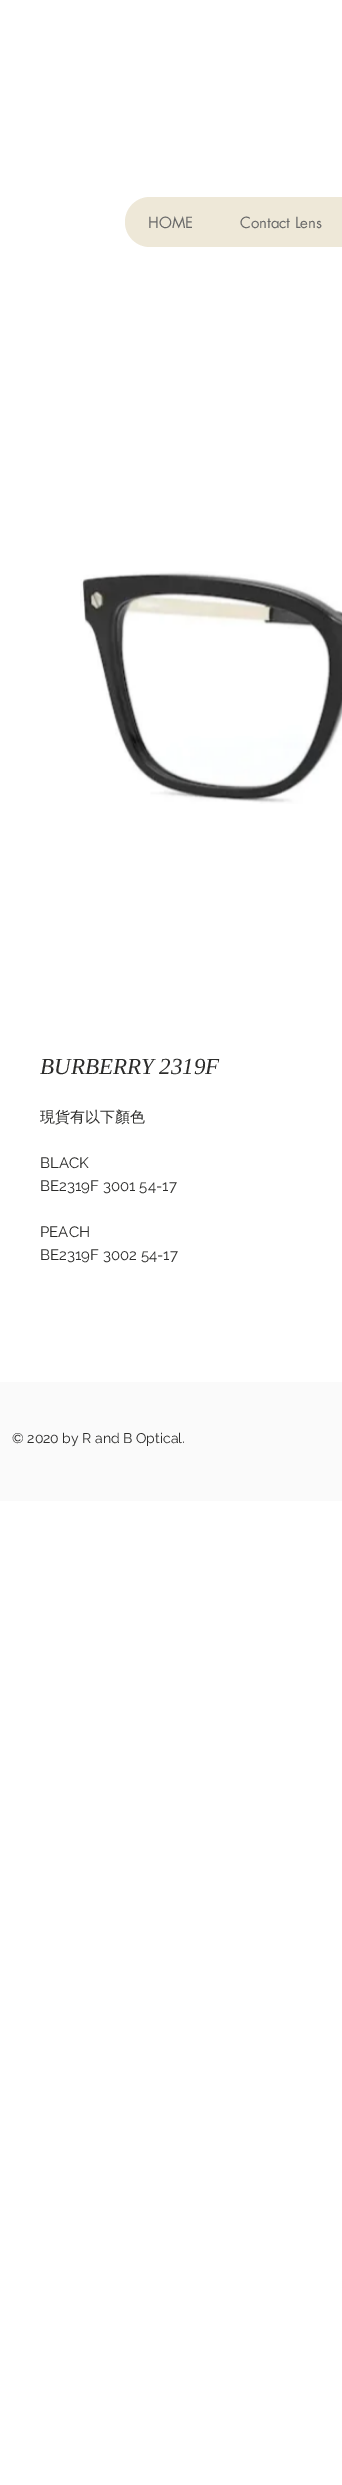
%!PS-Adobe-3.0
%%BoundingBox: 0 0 342 2485
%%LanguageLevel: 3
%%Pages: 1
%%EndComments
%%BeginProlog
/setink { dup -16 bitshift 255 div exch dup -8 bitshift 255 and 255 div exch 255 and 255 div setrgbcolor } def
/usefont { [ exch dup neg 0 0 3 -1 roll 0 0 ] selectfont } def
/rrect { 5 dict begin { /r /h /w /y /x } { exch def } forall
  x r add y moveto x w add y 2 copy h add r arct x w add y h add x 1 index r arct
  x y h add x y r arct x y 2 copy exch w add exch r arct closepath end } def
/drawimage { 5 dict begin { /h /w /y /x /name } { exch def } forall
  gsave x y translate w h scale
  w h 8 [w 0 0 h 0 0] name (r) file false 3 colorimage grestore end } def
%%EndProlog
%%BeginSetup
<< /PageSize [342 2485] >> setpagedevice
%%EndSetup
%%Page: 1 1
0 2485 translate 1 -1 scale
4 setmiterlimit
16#FFFFFF setink
0 0 342 2485 rectfill
16#EEE8D8 setink
125 197 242 50 25 rrect fill
/futura-Regular 15 usefont
16#696969 setink
148 228 moveto (HOME) show
240 228 moveto (Contact Lens) show
(img1.raw) 80 571 262 233 drawimage
/LiberationSerif-Italic 23 usefont
16#2C2C2B setink
40 1074 moveto (BURBERRY 2319F) show
/WenQuanYiZenHei-Medium 15 usefont
40 1122 moveto (現貨有以下顏色) show
/Raleway-Regular 15 usefont
[
    [(BLACK) 40 1168]
    [(BE2319F 3001 54-17) 40 1191]
    [(PEACH) 40 1237]
    [(BE2319F 3002 54-17) 40 1260]
] { aload pop moveto show } forall
16#FAFAFA setink
0 1382 342 119 rectfill
/Raleway-Regular 14 usefont
16#2C2C2B setink
12 1443 moveto (© 2020 by R and B Optical.) show
showpage
%%EOF
